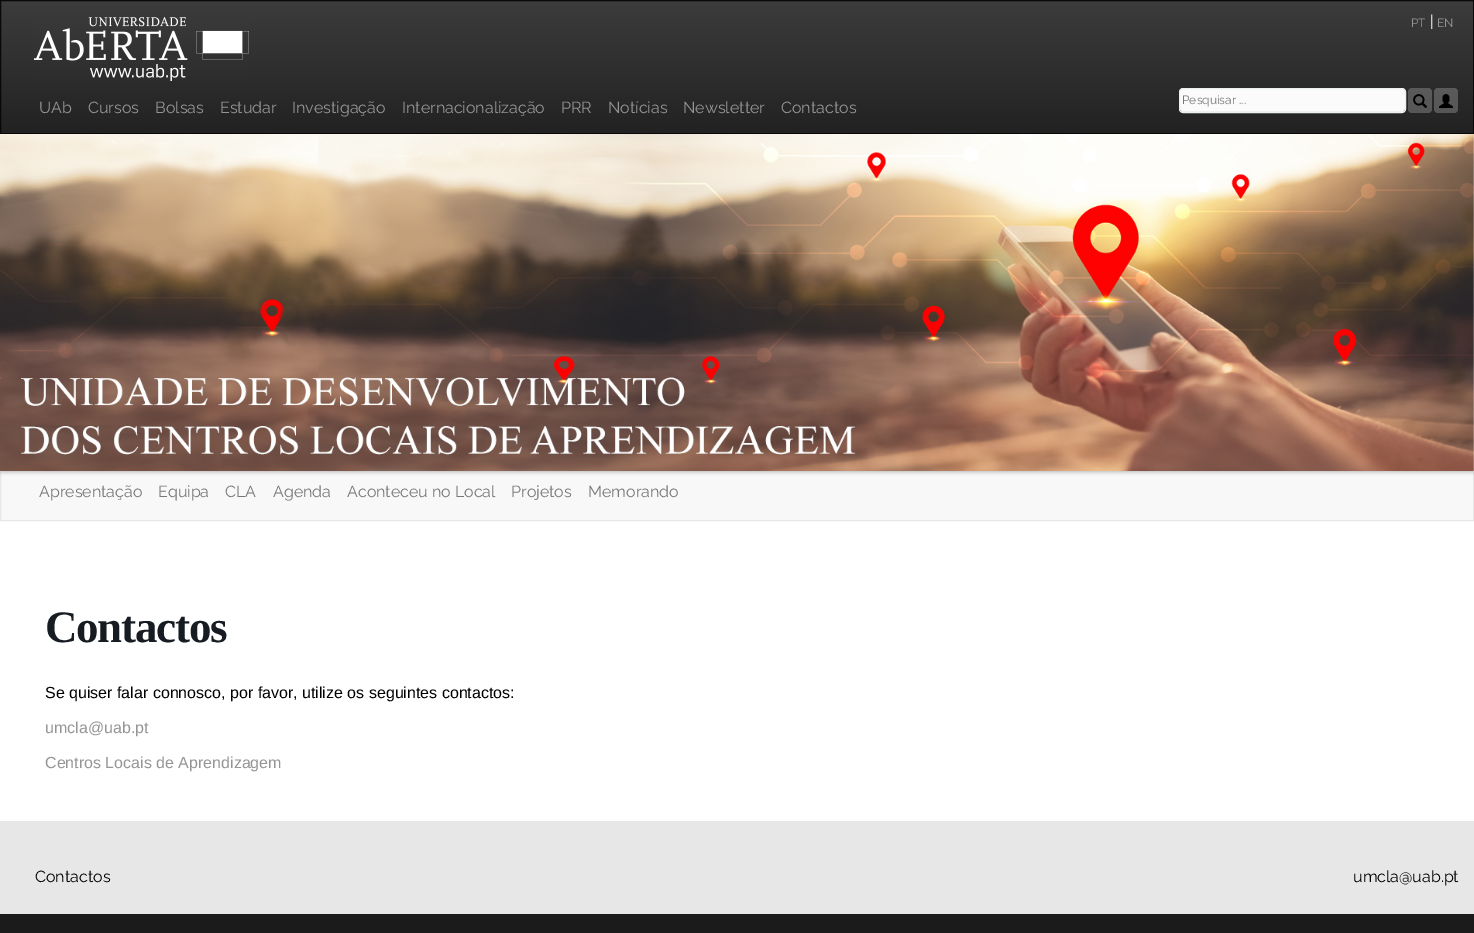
%!PS-Adobe-3.0
%%BoundingBox: 0 0 1474 933
%%LanguageLevel: 3
%%Pages: 1
%%EndComments
%%BeginProlog
/setink { dup -16 bitshift 255 div exch dup -8 bitshift 255 and 255 div exch 255 and 255 div setrgbcolor } def
/usefont { [ exch dup neg 0 0 3 -1 roll 0 0 ] selectfont } def
/setalpha { dup .setfillconstantalpha .setstrokeconstantalpha } def
/rrect { 5 dict begin { /r /h /w /y /x } { exch def } forall
  x r add y moveto x w add y 2 copy h add r arct x w add y h add x 1 index r arct
  x y h add x y r arct x y 2 copy exch w add exch r arct closepath end } def
/softshadow { 12 dict begin { /a /b /q /h /w /y /x } { exch def } forall gsave /was 0 def
  9 -2 -9 { dup b mul 4 div /e exch def 1 sub .425 mul 2.718 exch exp 1 add a .99 .min exch div /now exch def
    1 1 now sub 1 was sub div sub setalpha /was now def
    w h .min e 2 mul add 0 gt { x e sub y e sub w e 2 mul add h e 2 mul add
      q e add b .6 mul add w h .min 2 div e add .min 0 .max rrect fill } if } for grestore end } def
/drawimage { 5 dict begin { /h /w /y /x /name } { exch def } forall
  gsave x y translate w h scale
  w h 8 [w 0 0 h 0 0] name (r) file false 3 colorimage grestore end } def
%%EndProlog
%%BeginSetup
<< /PageSize [1474 933] /PageUsesTransparency true >> setpagedevice
%%EndSetup
%%Page: 1 1
0 .pushpdf14devicefilter
0 933 translate 1 -1 scale
4 setmiterlimit
16#FFFFFF setink
0 0 1474 933 rectfill
16#F8F8F8 setink
0.5 471.5 moveto 1473.5 471.5 lineto 1473.5 520.5 lineto 0.5 520.5 lineto closepath gsave fill grestore
16#E7E7E7 setink
stroke
16#000000 setink
-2 -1 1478 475 0 1 0.1 softshadow
gsave 1 1 moveto 1473 1 lineto 1473 133 lineto 1 133 lineto closepath clip newpath
<< /ShadingType 2 /ColorSpace /DeviceRGB /Coords [737 1 737 133] /Extend [true true] /Function << /FunctionType 2 /Domain [0 1] /C0 [0.235 0.235 0.235] /C1 [0.133 0.133 0.133] /N 1 >> >> shfill grestore
16#080808 setink
0.5 0.5 1473 133 rectstroke
(img1.raw) 34 17 215 64 drawimage
/Raleway-Regular 12 usefont
16#959595 setink
1411 27 moveto (PT) show
/Raleway-Regular 16 usefont
16#FFFFFF setink
1430 27 moveto (|) show
/Raleway-Regular 12 usefont
16#959595 setink
1437 27 moveto (EN) show
/Raleway-Regular 16 usefont
[
    [(UAb) 39 113]
    [(Cursos) 88 113]
    [(Bolsas) 155 113]
    [(Estudar) 220 113]
    [(Investigação) 292 113]
    [(Internacionalização) 402 113]
    [(PRR) 561 113]
    [(Notícias) 608 113]
    [(Newsletter) 683 113]
    [(Contactos) 781 113]
] { aload pop moveto show } forall
16#FBFBFC setink
1183 89 moveto 1402 89 lineto 1404 89 1405 90 1405 92 curveto 1405 109 lineto 1405 110 1404 111 1402 111 curveto 1183 111 lineto 1181 111 1180 110 1180 109 curveto 1180 92 lineto 1180 90 1181 89 1183 89 curveto closepath fill
16#ECF0F1 setink
1179.5 88.5 226 24 3.5 rrect stroke
1181 111 223 1 rectfill
/Raleway-Regular 12 usefont
16#777777 setink
1182 104 moveto (Pesquisar ...) show
0.3 setalpha
16#C8C8C8 setink
1408 88 24 25 4 rrect fill
1 setalpha
(img2.raw) 1413 94 14 14 drawimage
0.3 setalpha
1434 88 24 25 4 rrect fill
1 setalpha
(img3.raw) 1439 94 14 14 drawimage
(img4.raw) 0 134 1474 337 drawimage
/Raleway-Regular 16 usefont
16#777777 setink
[
    [(Apresentação) 39 497]
    [(Equipa) 158 497]
    [(CLA) 225 497]
    [(Agenda) 273 497]
    [(Aconteceu no Local) 347 497]
    [(Projetos) 511 497]
    [(Memorando) 588 497]
] { aload pop moveto show } forall
/LiberationSerif-Bold 45 usefont
16#171C22 setink
45 642 moveto -1.25 0 (Contactos) ashow
/LiberationSans-Regular 16 usefont
16#000000 setink
45 698 moveto (Se quiser falar connosco, por favor, utilize os seguintes contactos:) show
16#959595 setink
45 733 moveto (umcla@uab.pt) show
45 768 moveto (Centros Locais de Aprendizagem) show
16#E7E7E7 setink
0 821 1474 93 rectfill
/Raleway-Regular 16 usefont
16#000000 setink
35 882 moveto (Contactos) show
1353 882 moveto (umcla@uab.pt) show
16#1B1B1B setink
0 914 1474 19 rectfill
.poppdf14devicefilter showpage
%%EOF
